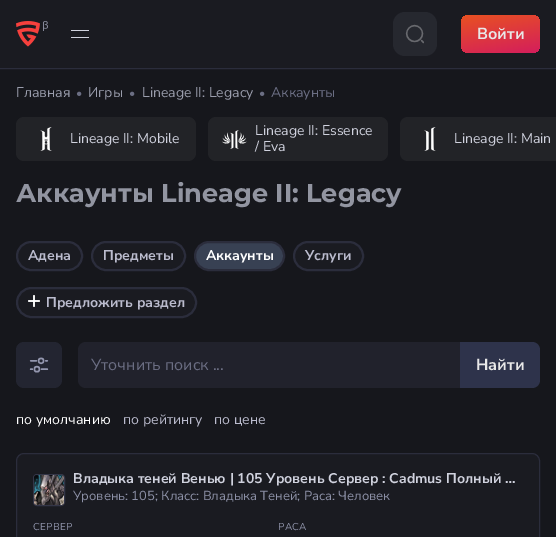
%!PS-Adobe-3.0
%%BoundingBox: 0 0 556 537
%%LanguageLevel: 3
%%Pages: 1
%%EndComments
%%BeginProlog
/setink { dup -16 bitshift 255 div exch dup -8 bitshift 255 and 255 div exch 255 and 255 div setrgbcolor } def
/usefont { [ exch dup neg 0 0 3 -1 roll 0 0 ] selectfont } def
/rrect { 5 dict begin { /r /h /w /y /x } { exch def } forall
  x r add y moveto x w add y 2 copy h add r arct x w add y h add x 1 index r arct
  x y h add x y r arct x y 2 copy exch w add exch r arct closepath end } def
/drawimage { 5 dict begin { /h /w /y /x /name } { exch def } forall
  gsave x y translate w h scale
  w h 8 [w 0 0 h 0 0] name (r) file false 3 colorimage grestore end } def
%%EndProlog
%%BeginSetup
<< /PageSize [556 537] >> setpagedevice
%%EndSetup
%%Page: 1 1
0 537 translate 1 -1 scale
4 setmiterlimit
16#16171C setink
0 0 556 537 rectfill
16#2B2D3C setink
-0.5 -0.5 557 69 rectstroke
16#1A1B21 setink
0 0 556 68 rectfill
(img1.raw) 16 21 24 26 drawimage
(img2.raw) 43 21 5 10 drawimage
16#D0D2DE setink
71 30 18 1 rectfill
71 37 18 1 rectfill
16#26282F setink
393 12 44 44 12 rrect fill
(img3.raw) 405 24 19 20 drawimage
gsave 461 15 79 38 8 rrect clip newpath
<< /ShadingType 2 /ColorSpace /DeviceRGB /Coords [505 59 496 9] /Extend [true true] /Function << /FunctionType 2 /Domain [0 1] /C0 [0.831 0.118 0.361] /C1 [0.91 0.318 0.133] /N 1 >> >> shfill grestore
/NunitoSans-Bold 16 usefont
16#E8E8E8 setink
477 39 moveto (Войти) show
/NunitoSans-Regular 14 usefont
16#9A9DAC setink
16 97 moveto (Главная) show
/NunitoSans-Regular 12 usefont
16#6B6E83 setink
76 97 moveto (•) show
/NunitoSans-Regular 14 usefont
16#9A9DAC setink
88 97 moveto (Игры) show
/NunitoSans-Regular 12 usefont
16#6B6E83 setink
129 97 moveto (•) show
/NunitoSans-Regular 14 usefont
16#9A9DAC setink
142 97 moveto (Lineage II: Legacy) show
/NunitoSans-Regular 12 usefont
16#6B6E83 setink
259 97 moveto (•) show
/NunitoSans-Regular 14 usefont
271 97 moveto (Аккаунты) show
16#222327 setink
16 117 180 44 8 rrect fill
(img4.raw) 40 127 12 24 drawimage
16#D0D2DE setink
70 143 moveto (Lineage II: Mobile) show
16#222327 setink
208 117 180 44 8 rrect fill
(img5.raw) 222 130 25 19 drawimage
16#D0D2DE setink
255 135 moveto (Lineage II: Essence) show
255 151 moveto (/ Eva) show
16#222327 setink
408 117 moveto 556 117 lineto 556 161 lineto 408 161 lineto 403.5 161 400 157.5 400 153 curveto 400 125 lineto 400 120.5 403.5 117 408 117 curveto closepath fill
(img6.raw) 424 127 12 24 drawimage
16#D0D2DE setink
454 143 moveto (Lineage II: Main) show
/Montserrat-Bold 25.6 usefont
16#9295A1 setink
16 202 moveto (Аккаунты Lineage II: Legacy) show
16#1A1B21 setink
17 242 65 28 14 rrect gsave fill grestore
16#2B2D3C setink
2 setlinewidth
stroke
/NunitoSans-Bold 14 usefont
16#BBBCCE setink
28 260 moveto (Адена) show
16#1A1B21 setink
92 242 93 28 14 rrect gsave fill grestore
16#2B2D3C setink
stroke
16#BBBCCE setink
103 260 moveto (Предметы) show
16#384153 setink
195 242 89 28 14 rrect gsave fill grestore
16#2B2D3C setink
stroke
16#FFFFFF setink
206 260 moveto (Аккаунты) show
16#1A1B21 setink
294 242 69 28 14 rrect gsave fill grestore
16#2B2D3C setink
stroke
16#BBBCCE setink
305 260 moveto (Услуги) show
16#1A1B21 setink
17 288 179 29 14.5 rrect gsave fill grestore
16#2B2D3C setink
stroke
(img7.raw) 28 295 12 12 drawimage
16#BBBCCE setink
46 307 moveto (Предложить раздел) show
16#232531 setink
16 342 46 46 8 rrect fill
(img8.raw) 29 357 20 16 drawimage
16#21222C setink
86 342 moveto 460 342 lineto 460 388 lineto 86 388 lineto 81.5 388 78 384.5 78 380 curveto 78 350 lineto 78 345.5 81.5 342 86 342 curveto closepath fill
/NunitoSans-Regular 16 usefont
16#6B6E83 setink
91 370 moveto (Уточнить поиск ...) show
16#2E334B setink
460 342 moveto 532 342 lineto 536.5 342 540 345.5 540 350 curveto 540 380 lineto 540 384.5 536.5 388 532 388 curveto 460 388 lineto closepath fill
/NunitoSans-Bold 16 usefont
16#E8E8E8 setink
476 370 moveto (Найти) show
/NunitoSans-Regular 14 usefont
16#FFFFFF setink
16 424 moveto (по умолчанию) show
16#BBBCCE setink
123 424 moveto (по рейтингу) show
214 424 moveto (по цене) show
16#1A1B21 setink
16.5 453.5 523 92 7.5 rrect gsave fill grestore
16#2B2D3C setink
1 setlinewidth
stroke
16#343648 setink
33.5 474.5 31 31 3.5 rrect stroke
(img9.raw) 34 475 30 30 drawimage
/NunitoSans-Bold 14 usefont
16#D0D2DE setink
73 483 moveto (Владыка теней Венью | 105 Уровень Сервер : Cadmus Полный …) show
/NunitoSans-Regular 13 usefont
16#8D91A7 setink
73 500 moveto (Уровень: 105; Класс: Владыка Теней; Раса: Человек) show
/NunitoSans-Regular 10 usefont
33 530 moveto 0.25 0 (СЕРВЕР) ashow
278 530 moveto 0.25 0 (РАСА) ashow
showpage
%%EOF
